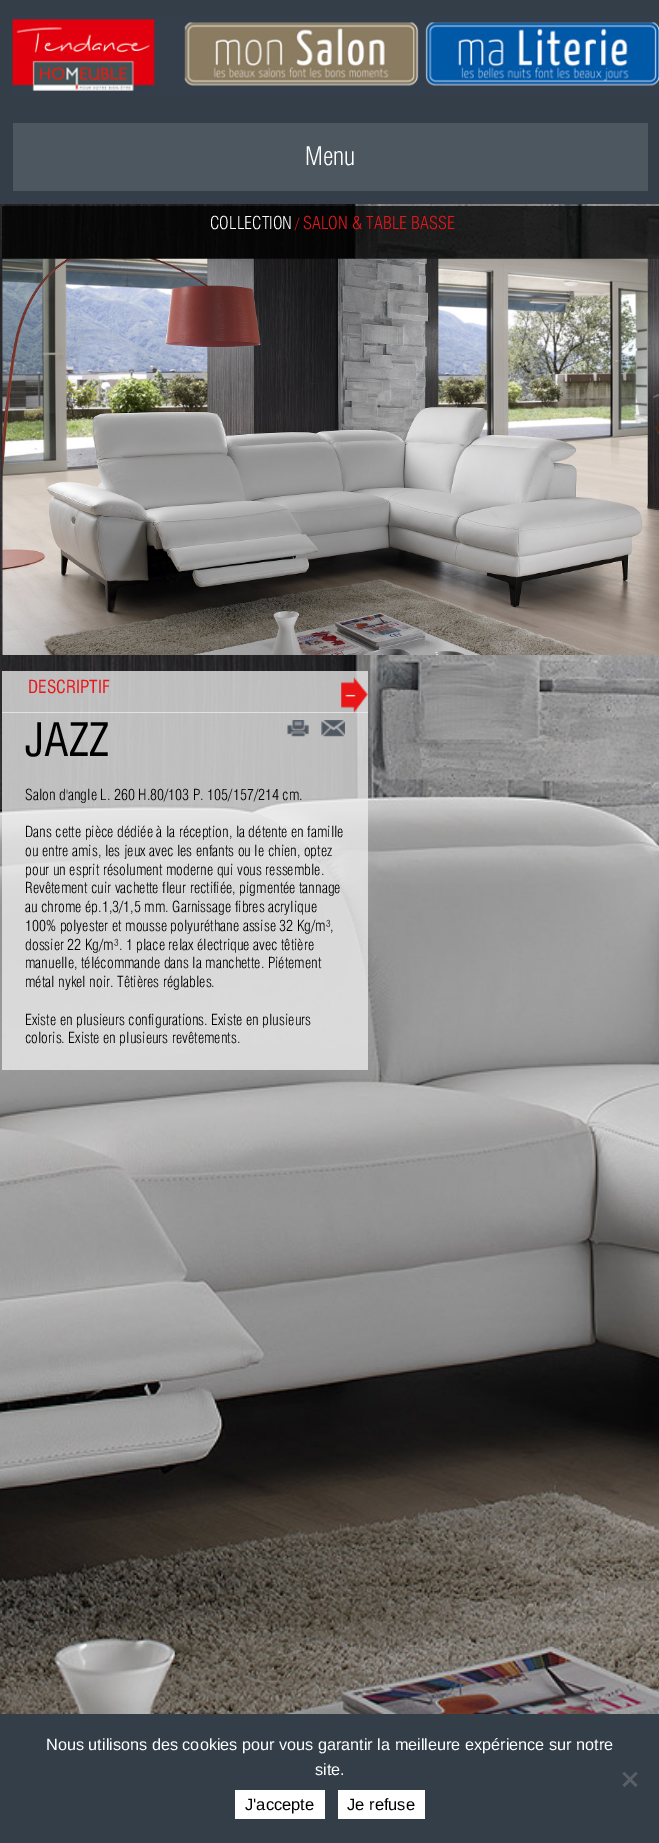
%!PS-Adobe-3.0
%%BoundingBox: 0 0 659 1843
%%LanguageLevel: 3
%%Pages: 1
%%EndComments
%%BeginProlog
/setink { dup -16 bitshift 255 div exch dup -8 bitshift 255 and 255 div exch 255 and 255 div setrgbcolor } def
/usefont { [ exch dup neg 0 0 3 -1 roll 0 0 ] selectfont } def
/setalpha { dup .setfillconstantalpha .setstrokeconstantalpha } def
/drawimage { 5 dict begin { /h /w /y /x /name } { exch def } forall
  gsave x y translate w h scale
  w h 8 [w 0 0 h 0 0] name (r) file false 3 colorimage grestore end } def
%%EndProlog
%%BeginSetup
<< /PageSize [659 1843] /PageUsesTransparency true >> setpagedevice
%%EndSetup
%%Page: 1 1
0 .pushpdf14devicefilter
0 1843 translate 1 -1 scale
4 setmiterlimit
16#FFFFFF setink
0 0 659 1843 rectfill
(img1.raw) 0 204 659 1510 drawimage
16#333E49 setink
0 0 659 204 rectfill
(img2.raw) 12 16 647 81 drawimage
16#4D5760 setink
13 123 635 68 rectfill
/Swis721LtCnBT-Light 25 usefont
16#FFFFFF setink
305 165 moveto (Menu) show
0.77 setalpha
16#000000 setink
2 206 657 53 rectfill
/Swis721LtCnBT-Light 17.5 usefont
1 setalpha
16#FFFFFF setink
210 229 moveto (COLLECTION) show
/Swis721LtCnBT-Light 15 usefont
16#E81619 setink
295 229 moveto (/) show
/Swis721LtCnBT-Light 17.5 usefont
303 229 moveto (SALON & TABLE BASSE) show
(img3.raw) 2 258 657 397 drawimage
0.77 setalpha
16#EDEDED setink
2 671 366 42 rectfill
/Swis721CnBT-Regular 17.5 usefont
1 setalpha
16#E81619 setink
28 693 moveto (DESCRIPTIF) show
0.77 setalpha
16#EDEDED setink
2 712 366 358 rectfill
1 setalpha
(img4.raw) 341 677 27 36 drawimage
/Swis721CnBT-Regular 45 usefont
16#000000 setink
25 756 moveto (JAZZ) show
(img5.raw) 287 720 22 17 drawimage
(img6.raw) 321 720 24 17 drawimage
/Swis721LtCnBT-Light 15 usefont
[
    [(Salon d'angle L. 260 H.80/103 P. 105/157/214 cm.) 25 800]
    [(Dans cette pièce dédiée à la réception, la détente en famille) 25 837]
    [(ou entre amis, les jeux avec les enfants ou le chien, optez) 25 856]
    [(pour un esprit résolument moderne qui vous ressemble.) 25 875]
    [(Revêtement cuir vachette fleur rectifiée, pigmentée tannage) 25 893]
    [(au chrome ép.1,3/1,5 mm. Garnissage fibres acrylique) 25 912]
    [(100% polyester et mousse polyuréthane assise 32 Kg/m³,) 25 931]
    [(dossier 22 Kg/m³. 1 place relax électrique avec têtière) 25 950]
    [(manuelle, télécommande dans la manchette. Piétement) 25 968]
    [(métal nykel noir. Têtières réglables.) 25 987]
    [(Existe en plusieurs configurations. Existe en plusieurs) 25 1025]
    [(coloris. Existe en plusieurs revêtements.) 25 1043]
] { aload pop moveto show } forall
16#333E49 setink
0 1714 659 129 rectfill
/LiberationSans-Regular 16.25 usefont
16#FFFFFF setink
46 1750 moveto (Nous utilisons des cookies pour vous garantir la meilleure expérience sur notre) show
315 1775 moveto (site.) show
16#5A5F65 setink
635.5 1772 moveto 637.5 1773.5 lineto 624.5 1787 lineto 622.5 1785 lineto closepath fill
622.5 1773.5 moveto 624.5 1772 lineto 637.5 1785 lineto 635.5 1787 lineto closepath fill
16#FFFFFF setink
235 1790 90 29 rectfill
/LiberationSans-Regular 16.5 usefont
16#000000 setink
245 1810 moveto (J'accepte) show
16#FFFFFF setink
338 1790 87 29 rectfill
16#000000 setink
347 1810 moveto (Je refuse) show
.poppdf14devicefilter showpage
%%EOF
